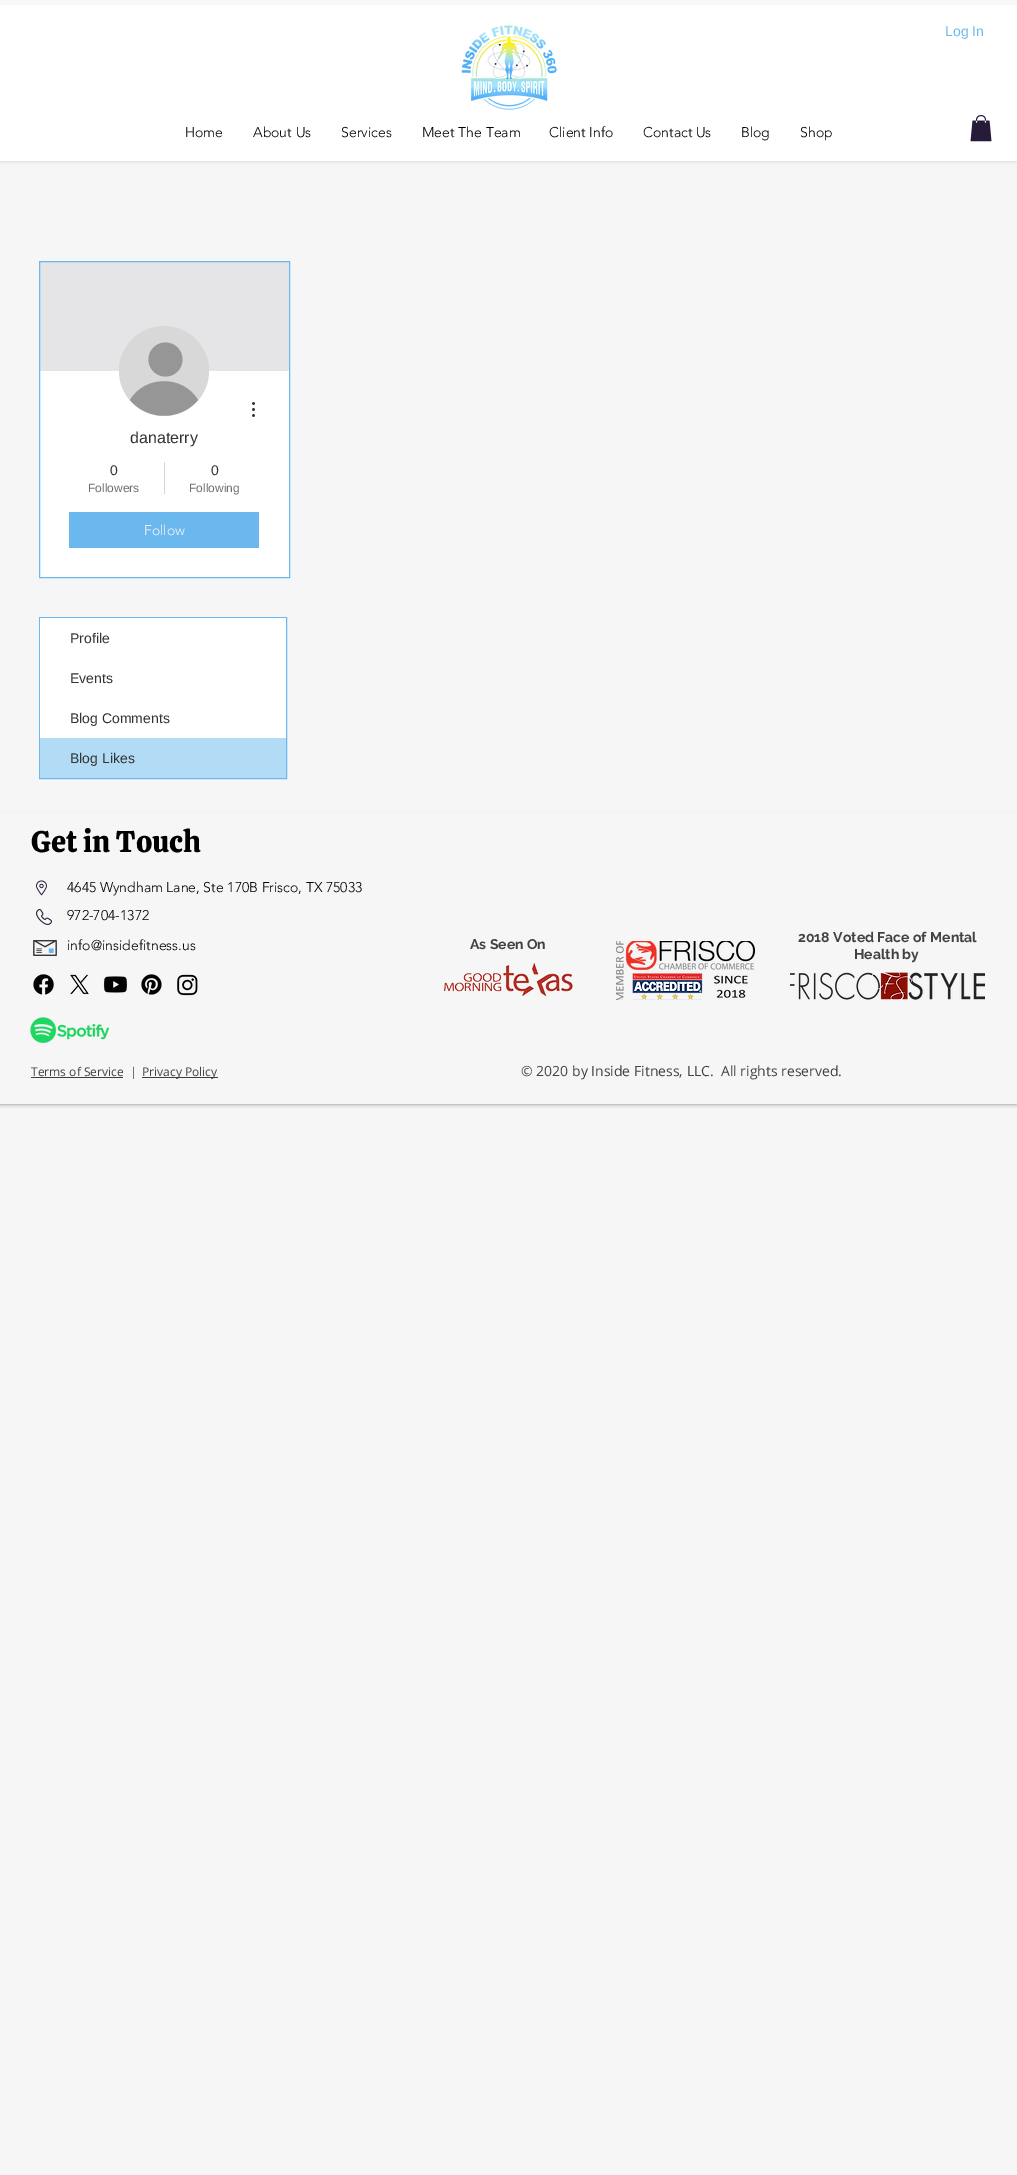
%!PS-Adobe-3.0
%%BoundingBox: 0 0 1017 2175
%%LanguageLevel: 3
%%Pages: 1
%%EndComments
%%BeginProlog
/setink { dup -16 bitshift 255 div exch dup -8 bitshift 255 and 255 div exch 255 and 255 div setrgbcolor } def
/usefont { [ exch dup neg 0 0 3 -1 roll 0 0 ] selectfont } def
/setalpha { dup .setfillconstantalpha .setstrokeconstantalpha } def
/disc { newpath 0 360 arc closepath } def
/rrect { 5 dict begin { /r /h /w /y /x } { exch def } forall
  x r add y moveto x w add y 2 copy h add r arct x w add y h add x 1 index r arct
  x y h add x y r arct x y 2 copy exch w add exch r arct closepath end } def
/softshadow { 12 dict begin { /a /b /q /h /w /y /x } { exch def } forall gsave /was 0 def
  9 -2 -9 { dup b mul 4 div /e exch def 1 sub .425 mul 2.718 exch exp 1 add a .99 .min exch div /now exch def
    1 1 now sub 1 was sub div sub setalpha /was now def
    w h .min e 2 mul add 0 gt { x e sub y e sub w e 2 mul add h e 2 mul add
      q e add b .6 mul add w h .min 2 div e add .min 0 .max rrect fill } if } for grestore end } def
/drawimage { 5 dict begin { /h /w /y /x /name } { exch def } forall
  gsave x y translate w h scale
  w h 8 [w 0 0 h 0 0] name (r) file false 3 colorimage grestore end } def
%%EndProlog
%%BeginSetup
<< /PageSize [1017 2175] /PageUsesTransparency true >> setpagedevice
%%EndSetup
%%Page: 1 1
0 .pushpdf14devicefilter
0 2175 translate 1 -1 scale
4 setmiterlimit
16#F6F6F6 setink
0 0 1017 2175 rectfill
16#000000 setink
0 0 1017 158 0 2.5 0.7 softshadow
16#F8F8F8 setink
0 0 1017 5 rectfill
16#FFFFFF setink
0 5 1017 156 rectfill
(img1.raw) 461 25 96 85 drawimage
/LiberationSans-Regular 14 usefont
16#6AB8EE setink
945 36 moveto (Log In) show
/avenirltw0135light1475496-Light 14 usefont
16#000000 setink
[
    [(Home) 185 137]
    [(About Us) 253 137]
    [(Services) 341 137]
    [(Meet The Team) 422 137]
    [(Client Info) 549 137]
    [(Contact Us) 643 137]
    [(Blog) 741 137]
    [(Shop) 800 137]
] { aload pop moveto show } forall
(img2.raw) 970 115 22 27 drawimage
16#FFFFFF setink
40 371 249 206 rectfill
16#E5E4E7 setink
40 262 249 109 rectfill
16#6AB8EE setink
39.5 261.5 250 316 rectstroke
16#D8D8D8 setink
164 371 45 disc fill
16#969696 setink
165.5 359.5 17 disc fill
198 400 moveto 180 421 148 421 130 400 curveto 145 375 183 375 198 400 curveto closepath fill
(img3.raw) 252 402 3 15 drawimage
/LiberationSans-Regular 16 usefont
16#333333 setink
130 443 moveto (danaterry) show
/LiberationSans-Regular 14 usefont
110 475 moveto (0) show
/LiberationSans-Regular 12 usefont
16#707070 setink
88 492 moveto (Followers) show
16#D6D6D6 setink
164 462 1 32 rectfill
/LiberationSans-Regular 14 usefont
16#333333 setink
211 475 moveto (0) show
/LiberationSans-Regular 12 usefont
16#707070 setink
189 492 moveto (Following) show
16#6AB8EE setink
69 512 190 36 rectfill
/avenirltw0135light1475496-Light 14 usefont
16#F6F6F6 setink
144 535 moveto (Follow) show
16#6AB8EE setink
39.5 617.5 247 161 rectstroke
16#FFFFFF setink
40 618 246 120 rectfill
/LiberationSans-Regular 14 usefont
16#333333 setink
[
    [(Profile) 70 643]
    [(Events) 70 683]
    [(Blog Comments) 70 723]
] { aload pop moveto show } forall
16#B2DBF6 setink
40 738 246 40 rectfill
16#333333 setink
70 763 moveto (Blog Likes) show
16#000000 setink
0 818 1017 285 0 2.5 0.7 softshadow
16#F6F6F6 setink
0 813 1017 291 rectfill
/Calistoga-Regular 30 usefont
16#000000 setink
31 852 moveto (Get in Touch) show
(img4.raw) 36 880 11 16 drawimage
/avenirltw0135light1475496-Light 14 usefont
67 892 moveto (4645 Wyndham Lane, Ste 170B Frisco, TX 75033) show
(img5.raw) 36 909 16 16 drawimage
67 920 moveto (972-704-1372) show
(img6.raw) 33 940 24 16 drawimage
67 950 moveto (info@insidefitness.us) show
/Raleway-Bold 14 usefont
16#424242 setink
470 949 moveto (As Seen On) show
(img7.raw) 444 963 129 34 drawimage
(img8.raw) 616 941 139 59 drawimage
798 942 moveto (2018 Voted Face of Mental) show
854 959 moveto (Health by) show
(img9.raw) 790 972 195 29 drawimage
(img10.raw) 33 974 21 21 drawimage
(img11.raw) 70 974 19 21 drawimage
(img12.raw) 103 976 25 17 drawimage
(img13.raw) 141 974 21 21 drawimage
(img14.raw) 177 974 21 22 drawimage
(img15.raw) 30 1017 79 27 drawimage
/OpenSans-Regular 12 usefont
31 1076 moveto (Terms of Service) show
16#423D3D setink
31 1077 92 1 rectfill
16#424242 setink
130 1076 moveto (|) show
16#423D3D setink
142 1077 76 1 rectfill
16#424242 setink
142 1076 moveto (Privacy Policy) show
/OpenSans-Regular 14 usefont
521 1076 moveto (© 2020 by Inside Fitness, LLC.  All rights reserved.) show
.poppdf14devicefilter showpage
%%EOF
